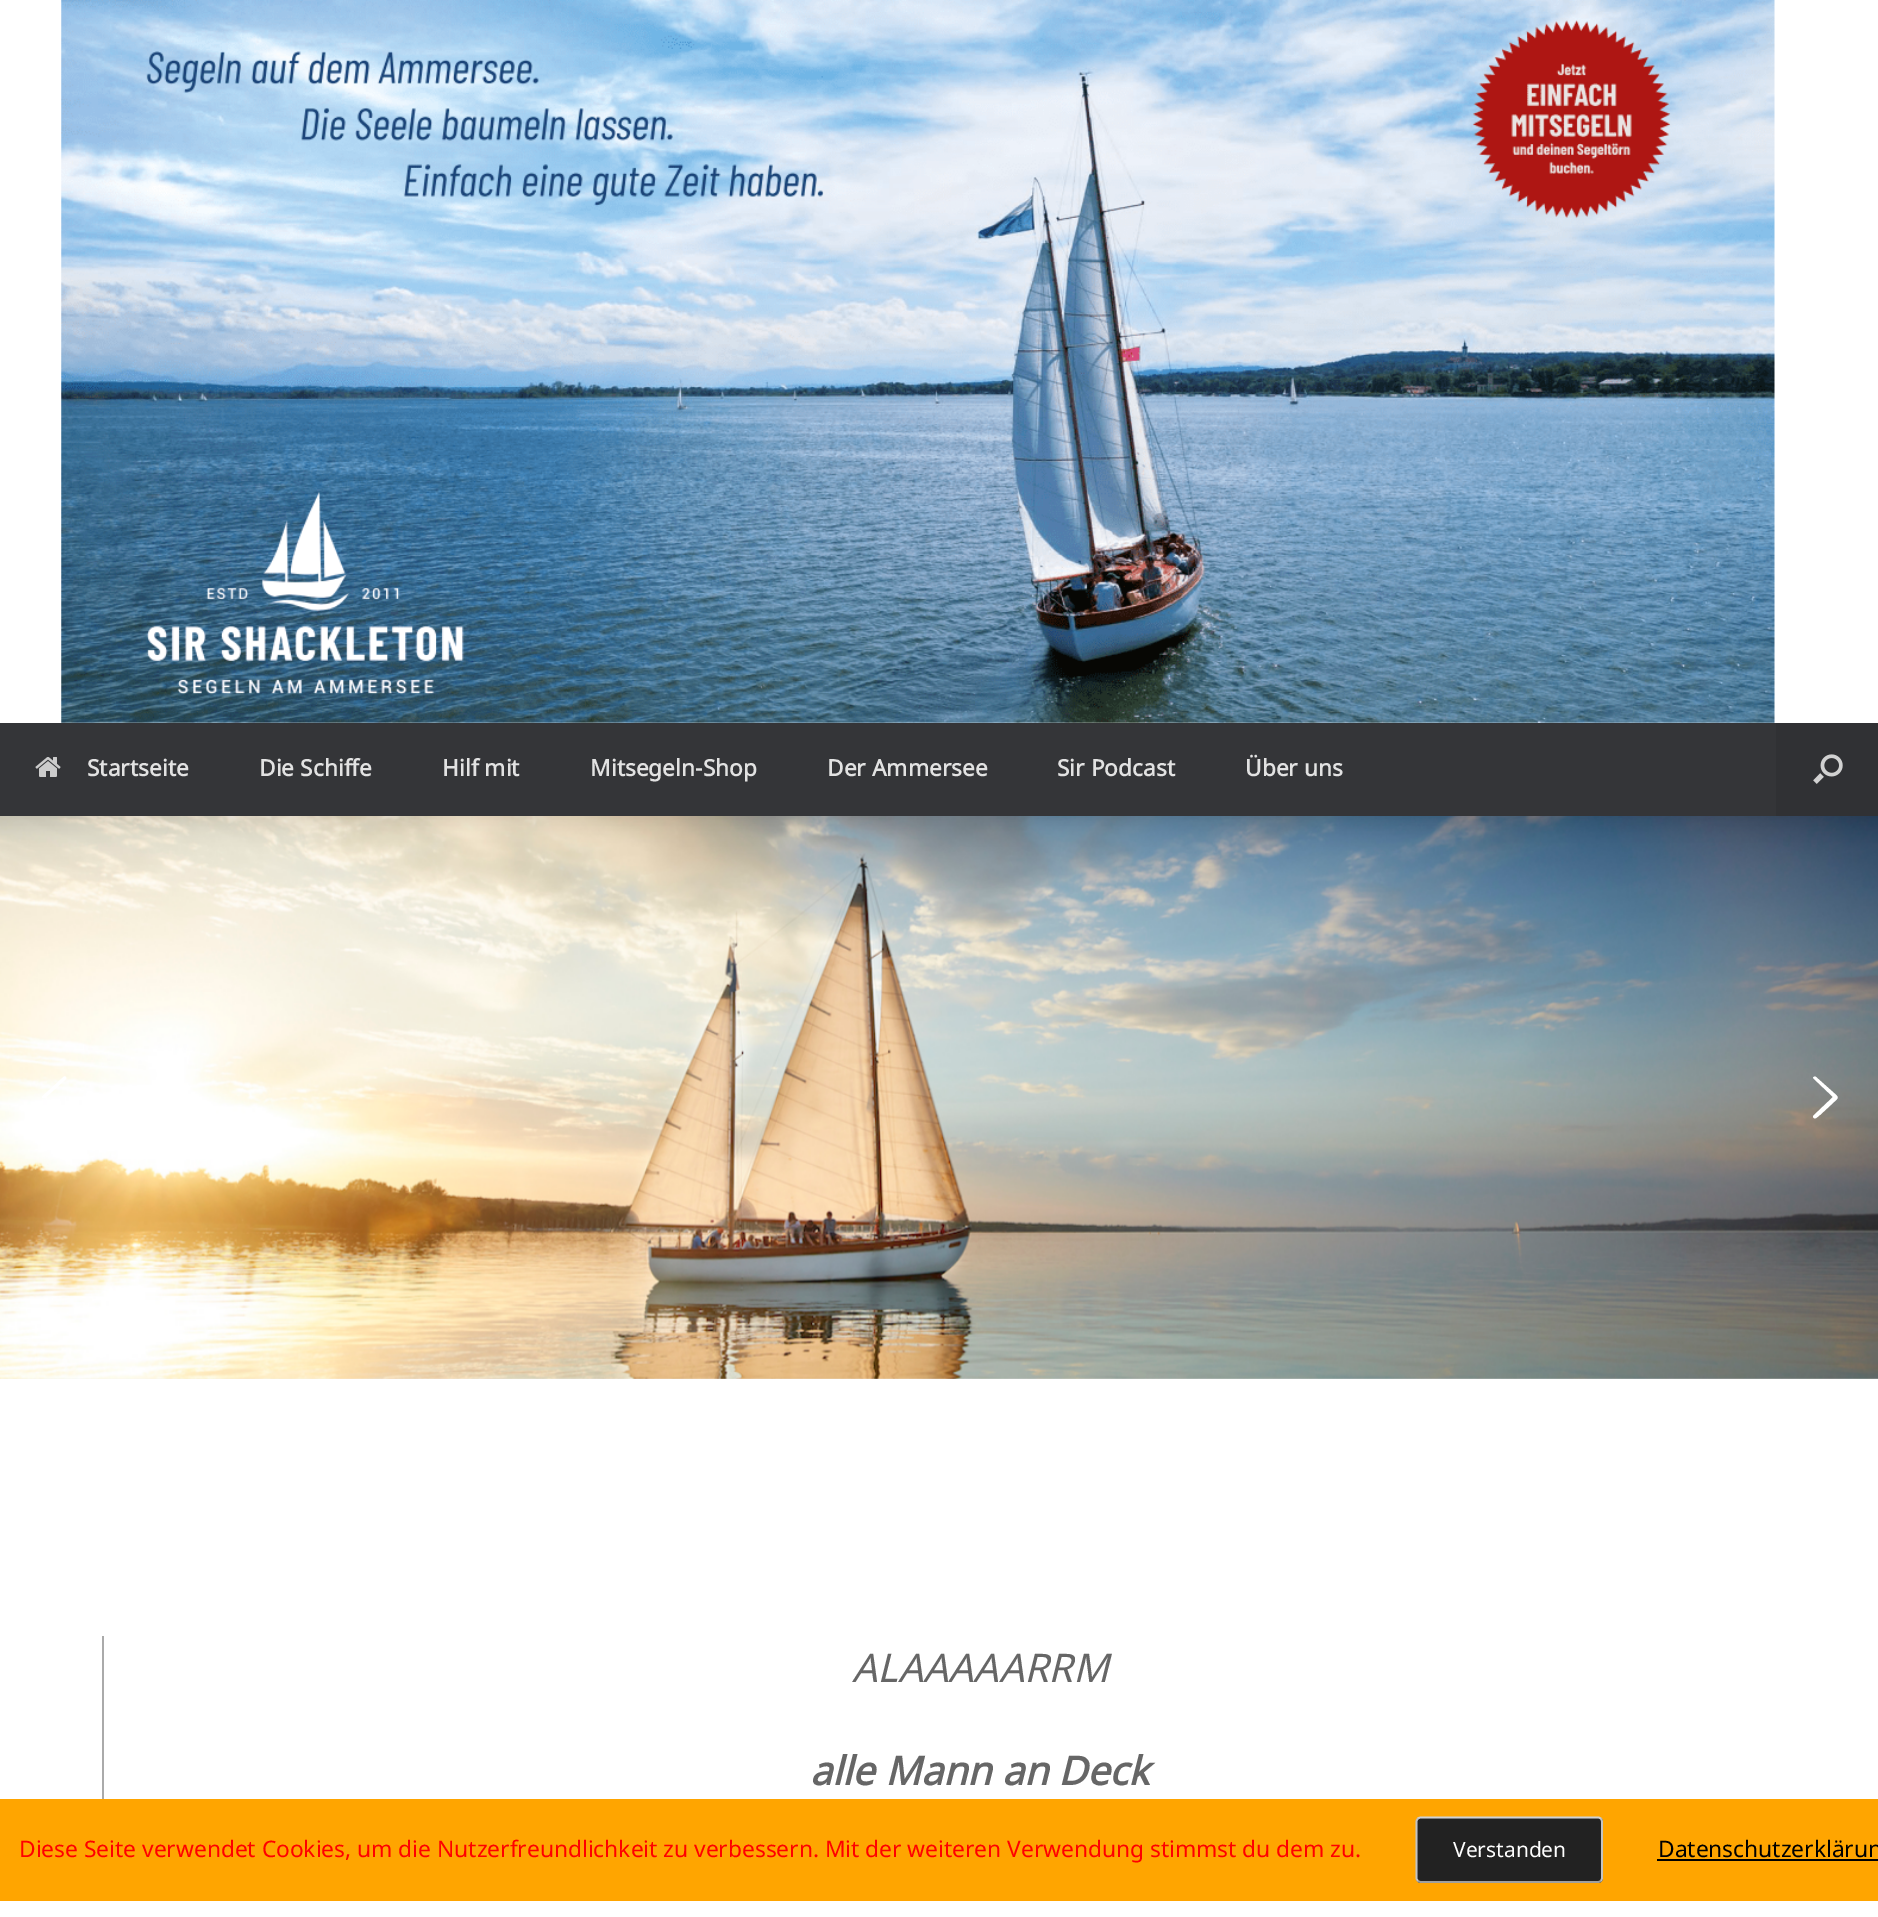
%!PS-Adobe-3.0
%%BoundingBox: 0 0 1878 1917
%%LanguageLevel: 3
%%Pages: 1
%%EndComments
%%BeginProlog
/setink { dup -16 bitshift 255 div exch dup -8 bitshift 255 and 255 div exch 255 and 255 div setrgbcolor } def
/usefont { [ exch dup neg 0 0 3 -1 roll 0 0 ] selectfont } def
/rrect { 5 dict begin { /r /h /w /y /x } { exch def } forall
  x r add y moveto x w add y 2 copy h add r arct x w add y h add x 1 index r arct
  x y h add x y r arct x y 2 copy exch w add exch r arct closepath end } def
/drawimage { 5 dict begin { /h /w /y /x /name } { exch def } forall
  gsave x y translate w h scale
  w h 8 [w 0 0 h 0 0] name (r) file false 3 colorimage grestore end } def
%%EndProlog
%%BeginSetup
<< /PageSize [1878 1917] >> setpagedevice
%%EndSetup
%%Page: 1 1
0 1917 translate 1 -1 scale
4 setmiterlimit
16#FFFFFF setink
0 0 1878 1917 rectfill
(img1.raw) 61 0 1714 723 drawimage
16#343538 setink
0 723 1776 93 rectfill
(img2.raw) 35 757 26 20 drawimage
/NotoSans-Bold 22.75 usefont
16#E2E2E2 setink
[
    [(Startseite) 87 776]
    [(Die Schiffe) 259 776]
    [(Hilf mit) 442 776]
    [(Mitsegeln-Shop) 590 776]
    [(Der Ammersee) 827 776]
    [(Sir Podcast) 1057 776]
    [(Über uns) 1245 776]
] { aload pop moveto show } forall
16#303134 setink
1776 723 102 93 rectfill
(img3.raw) 1813 754 30 30 drawimage
(img4.raw) 0 816 1878 563 drawimage
(img5.raw) 42 1076 25 22 drawimage
16#FFFFFF setink
1816 1077 moveto 1815 1076 1813 1077 1813 1078 curveto 1833 1097 lineto 1813 1116 lineto 1813 1117 lineto 1815 1121 1819 1115 1820 1115 curveto 1834 1102 lineto 1839 1097 1839 1098 1834 1093 curveto closepath eofill
16#AAAAAA setink
102 1636 2 167 rectfill
/NotoSans-Italic 39.4 usefont
16#666666 setink
852 1682 moveto (ALAAAAARRM) show
/NotoSans-BoldItalic 39.4 usefont
810 1785 moveto (alle Mann an Deck) show
16#FFA500 setink
0 1799 1878 102 rectfill
/NotoSans-Regular 22.75 usefont
16#FF0000 setink
19 1857 moveto (Diese Seite verwendet Cookies, um die Nutzerfreundlichkeit zu verbessern. Mit der weiteren Verwendung stimmst du dem zu.) show
16#222222 setink
1416 1817 187 66 5 rrect fill
16#D2D2D2 setink
1.8 setlinewidth
1418 1818.5 moveto 1418.5 1818 1420 1817.5 1421 1817.5 curveto 1598 1817.5 lineto 1599 1817.5 1600 1818 1601 1818.5 curveto stroke
16#C3C3C3 setink
1601 1818.5 moveto 1601.5 1819.5 1602 1820.5 1602 1822 curveto 1602 1878 lineto 1602 1879 1601.5 1880 1601 1881 curveto stroke
16#9F9F9F setink
1601 1881 moveto 1600 1881.5 1599 1882 1598 1882 curveto 1421 1882 lineto 1420 1882 1418.5 1881.5 1418 1881 curveto stroke
16#C3C3C3 setink
1418 1881 moveto 1417 1880 1416.5 1879 1416.5 1878 curveto 1416.5 1822 lineto 1416.5 1820.5 1417 1819.5 1418 1818.5 curveto stroke
/NotoSans-Regular 21 usefont
16#FFFFFF setink
1453 1857 moveto (Verstanden) show
/NotoSans-Regular 22.75 usefont
16#000000 setink
1658 1857 moveto (Datenschutzerklärun) show
1657 1859 221 2 rectfill
showpage
%%EOF
